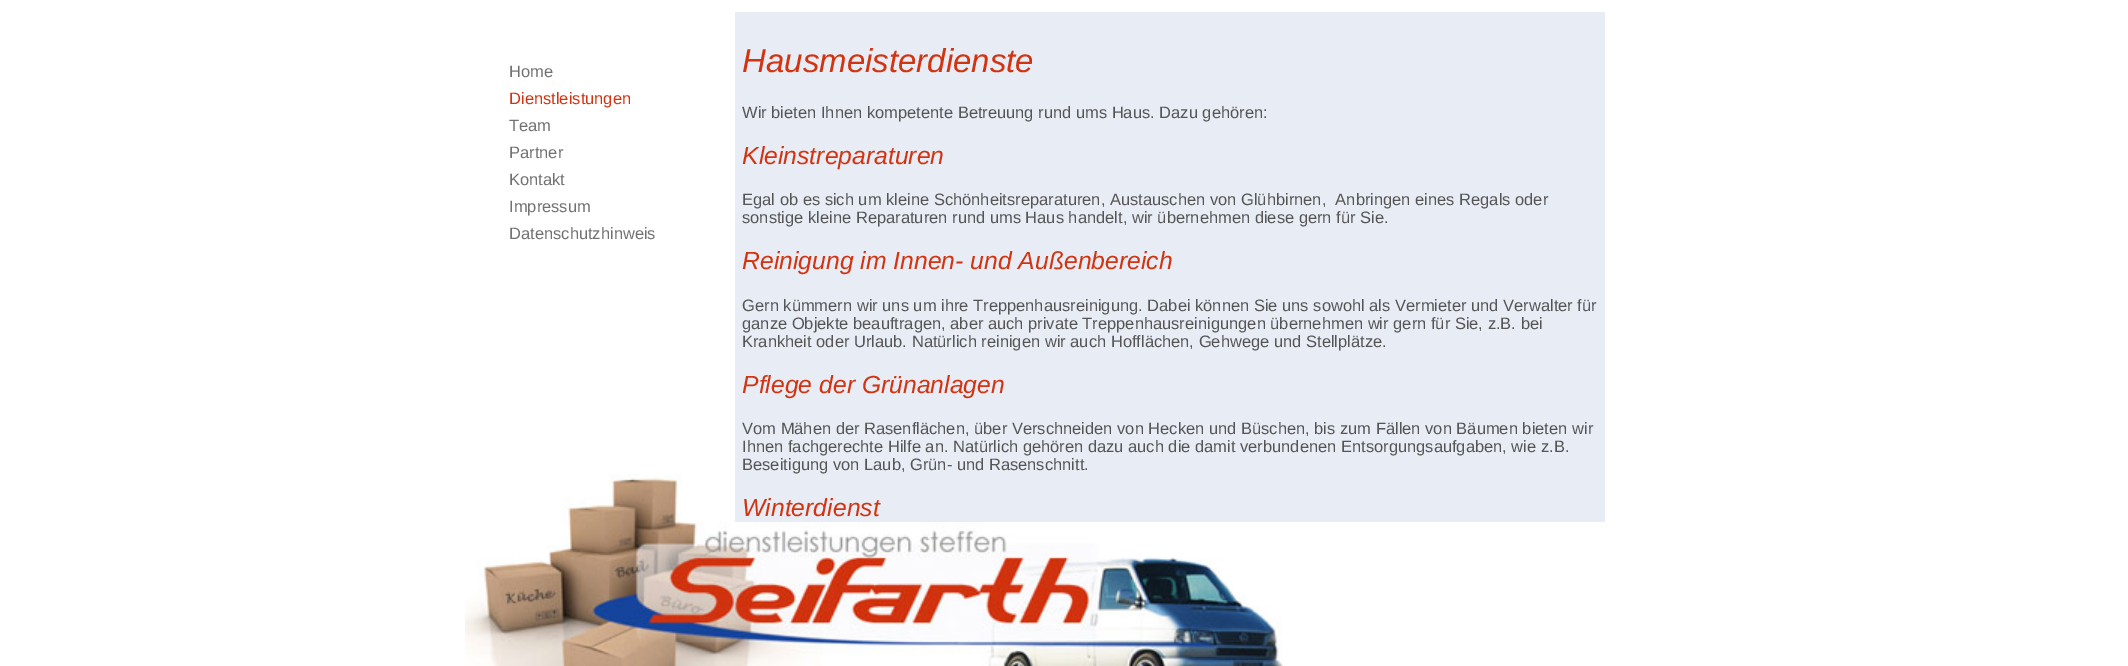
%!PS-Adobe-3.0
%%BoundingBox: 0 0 2128 666
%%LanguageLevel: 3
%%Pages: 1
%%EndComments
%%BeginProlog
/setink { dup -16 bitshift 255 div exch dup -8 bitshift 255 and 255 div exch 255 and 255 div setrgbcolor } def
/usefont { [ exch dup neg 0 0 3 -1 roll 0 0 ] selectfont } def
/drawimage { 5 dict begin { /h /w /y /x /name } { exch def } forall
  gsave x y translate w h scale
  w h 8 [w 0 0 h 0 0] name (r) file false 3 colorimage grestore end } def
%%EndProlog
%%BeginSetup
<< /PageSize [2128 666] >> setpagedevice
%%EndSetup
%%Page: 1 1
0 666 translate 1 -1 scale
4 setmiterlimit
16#FFFFFF setink
0 0 2128 666 rectfill
(img1.raw) 465 474 818 192 drawimage
/LiberationSans-Regular 16.5 usefont
16#727272 setink
509 77 moveto (Home) show
16#D23411 setink
509 104 moveto (Dienstleistungen) show
16#727272 setink
[
    [(Team) 509 131]
    [(Partner) 509 158]
    [(Kontakt) 509 185]
    [(Impressum) 509 212]
    [(Datenschutzhinweis) 509 239]
] { aload pop moveto show } forall
16#E7ECF5 setink
735 12 870 510 rectfill
/LiberationSans-Italic 33 usefont
16#D23411 setink
742 72 moveto (Hausmeisterdienste) show
/LiberationSans-Regular 16.5 usefont
16#555555 setink
742 118 moveto (Wir bieten Ihnen kompetente Betreuung rund ums Haus. Dazu gehören:) show
/LiberationSans-Italic 24.75 usefont
16#D23411 setink
742 164 moveto (Kleinstreparaturen) show
/LiberationSans-Regular 16.5 usefont
16#555555 setink
742 205 moveto (Egal ob es sich um kleine Schönheitsreparaturen, Austauschen von Glühbirnen,  Anbringen eines Regals oder) show
742 223 moveto (sonstige kleine Reparaturen rund ums Haus handelt, wir übernehmen diese gern für Sie.) show
/LiberationSans-Italic 24.75 usefont
16#D23411 setink
742 269 moveto (Reinigung im Innen- und Außenbereich) show
/LiberationSans-Regular 16.5 usefont
16#555555 setink
[
    [(Gern kümmern wir uns um ihre Treppenhausreinigung. Dabei können Sie uns sowohl als Vermieter und Verwalter für) 742 311]
    [(ganze Objekte beauftragen, aber auch private Treppenhausreinigungen übernehmen wir gern für Sie, z.B. bei) 742 329]
    [(Krankheit oder Urlaub. Natürlich reinigen wir auch Hofflächen, Gehwege und Stellplätze.) 742 347]
] { aload pop moveto show } forall
/LiberationSans-Italic 24.75 usefont
16#D23411 setink
742 393 moveto (Pflege der Grünanlagen) show
/LiberationSans-Regular 16.5 usefont
16#555555 setink
[
    [(Vom Mähen der Rasenflächen, über Verschneiden von Hecken und Büschen, bis zum Fällen von Bäumen bieten wir) 742 434]
    [(Ihnen fachgerechte Hilfe an. Natürlich gehören dazu auch die damit verbundenen Entsorgungsaufgaben, wie z.B.) 742 452]
    [(Beseitigung von Laub, Grün- und Rasenschnitt.) 742 470]
] { aload pop moveto show } forall
/LiberationSans-Italic 24.75 usefont
16#D23411 setink
742 516 moveto (Winterdienst) show
showpage
%%EOF
